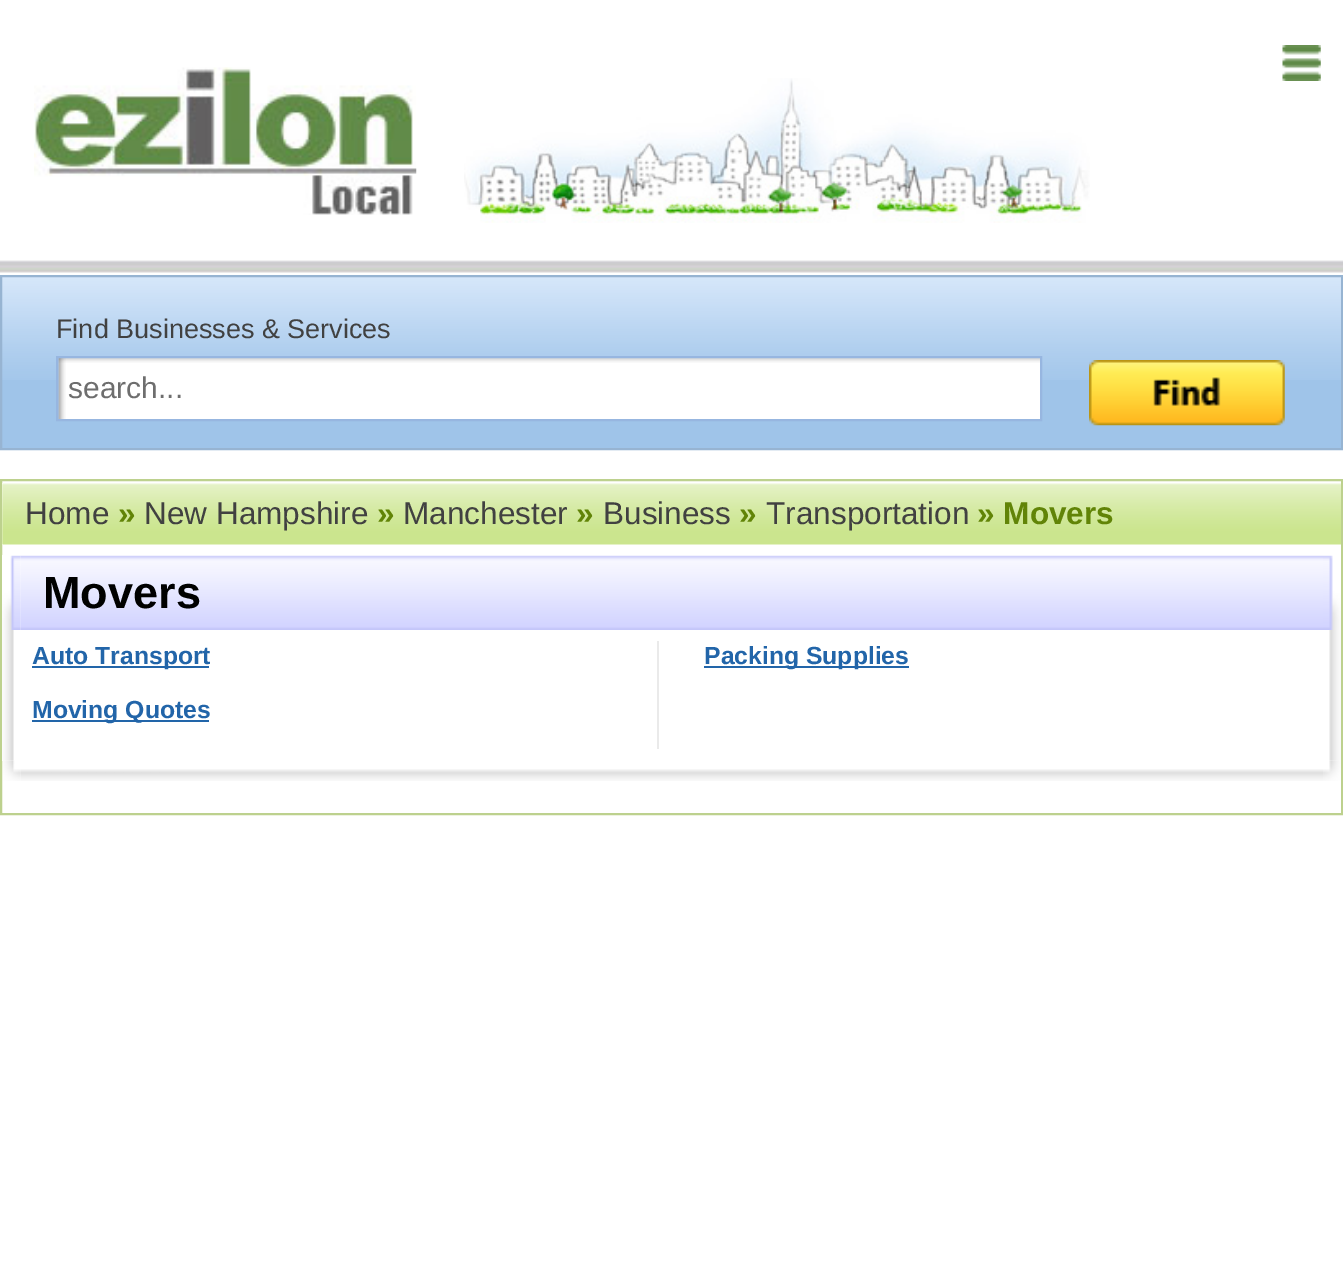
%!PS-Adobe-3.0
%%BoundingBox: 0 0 1343 1263
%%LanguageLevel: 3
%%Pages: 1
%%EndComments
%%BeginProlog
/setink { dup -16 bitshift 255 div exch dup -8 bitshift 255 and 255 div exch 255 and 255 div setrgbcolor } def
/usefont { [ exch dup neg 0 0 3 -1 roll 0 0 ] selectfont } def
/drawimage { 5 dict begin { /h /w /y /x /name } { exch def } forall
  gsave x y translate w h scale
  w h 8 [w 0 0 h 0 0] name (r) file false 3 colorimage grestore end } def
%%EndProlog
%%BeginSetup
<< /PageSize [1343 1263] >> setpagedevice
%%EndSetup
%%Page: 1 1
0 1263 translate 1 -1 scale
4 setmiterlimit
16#FFFFFF setink
0 0 1343 1263 rectfill
(img1.raw) 0 260 1343 13 drawimage
(img2.raw) 464 78 626 145 drawimage
(img3.raw) 1282 45 39 36 drawimage
(img4.raw) 34 67 383 148 drawimage
16#9FC4E9 setink
2 380 1339 68 rectfill
(img5.raw) 2 277 1339 103 drawimage
16#97B4D2 setink
2 setlinewidth
1 276 1341 173 rectstroke
/LiberationSans-Regular 27 usefont
16#414141 setink
56 338 moveto (Find Businesses & Services) show
(img6.raw) 58 358 982 61 drawimage
16#97B6E0 setink
57 357 984 63 rectstroke
/LiberationSans-Regular 30 usefont
16#6E6E6E setink
68 398 moveto (search...) show
(img7.raw) 1089 360 196 66 drawimage
16#BDD18E setink
1 480 1341 334 rectstroke
(img8.raw) 2 483 1339 62 drawimage
/LiberationSans-Regular 31.5 usefont
16#414141 setink
25 524 moveto (Home) show
/LiberationSans-Bold 31.5 usefont
16#618407 setink
118 524 moveto (») show
/LiberationSans-Regular 31.5 usefont
16#414141 setink
144 524 moveto (New Hampshire) show
/LiberationSans-Bold 31.5 usefont
16#618407 setink
377 524 moveto (») show
/LiberationSans-Regular 31.5 usefont
16#414141 setink
403 524 moveto (Manchester) show
/LiberationSans-Bold 31.5 usefont
16#618407 setink
576 524 moveto (») show
/LiberationSans-Regular 31.5 usefont
16#414141 setink
603 524 moveto (Business) show
/LiberationSans-Bold 31.5 usefont
16#618407 setink
739 524 moveto (») show
/LiberationSans-Regular 31.5 usefont
16#414141 setink
766 524 moveto (Transportation) show
/LiberationSans-Bold 31.5 usefont
16#618407 setink
977 524 moveto (» Movers) show
(img10.raw) 20 555 1303 75 drawimage
(img9.raw) 2 555 19 75 drawimage
/LiberationSans-Bold 45 usefont
16#000000 setink
43 608 moveto (Movers) show
(img11.raw) 1323 555 18 75 drawimage
(img12.raw) 2 630 12 131 drawimage
16#EAEAEA setink
657 641 2 108 rectfill
16#2265A9 setink
32 666 177 2 rectfill
/LiberationSans-Bold 24.75 usefont
32 664 moveto (Auto Transport) show
32 720 177 2 rectfill
32 718 moveto (Moving Quotes) show
704 666 205 2 rectfill
704 664 moveto (Packing Supplies) show
(img13.raw) 1329 630 12 131 drawimage
(img14.raw) 3 760 17 21 drawimage
(img15.raw) 20 769 1303 12 drawimage
(img16.raw) 1323 760 18 21 drawimage
showpage
%%EOF
